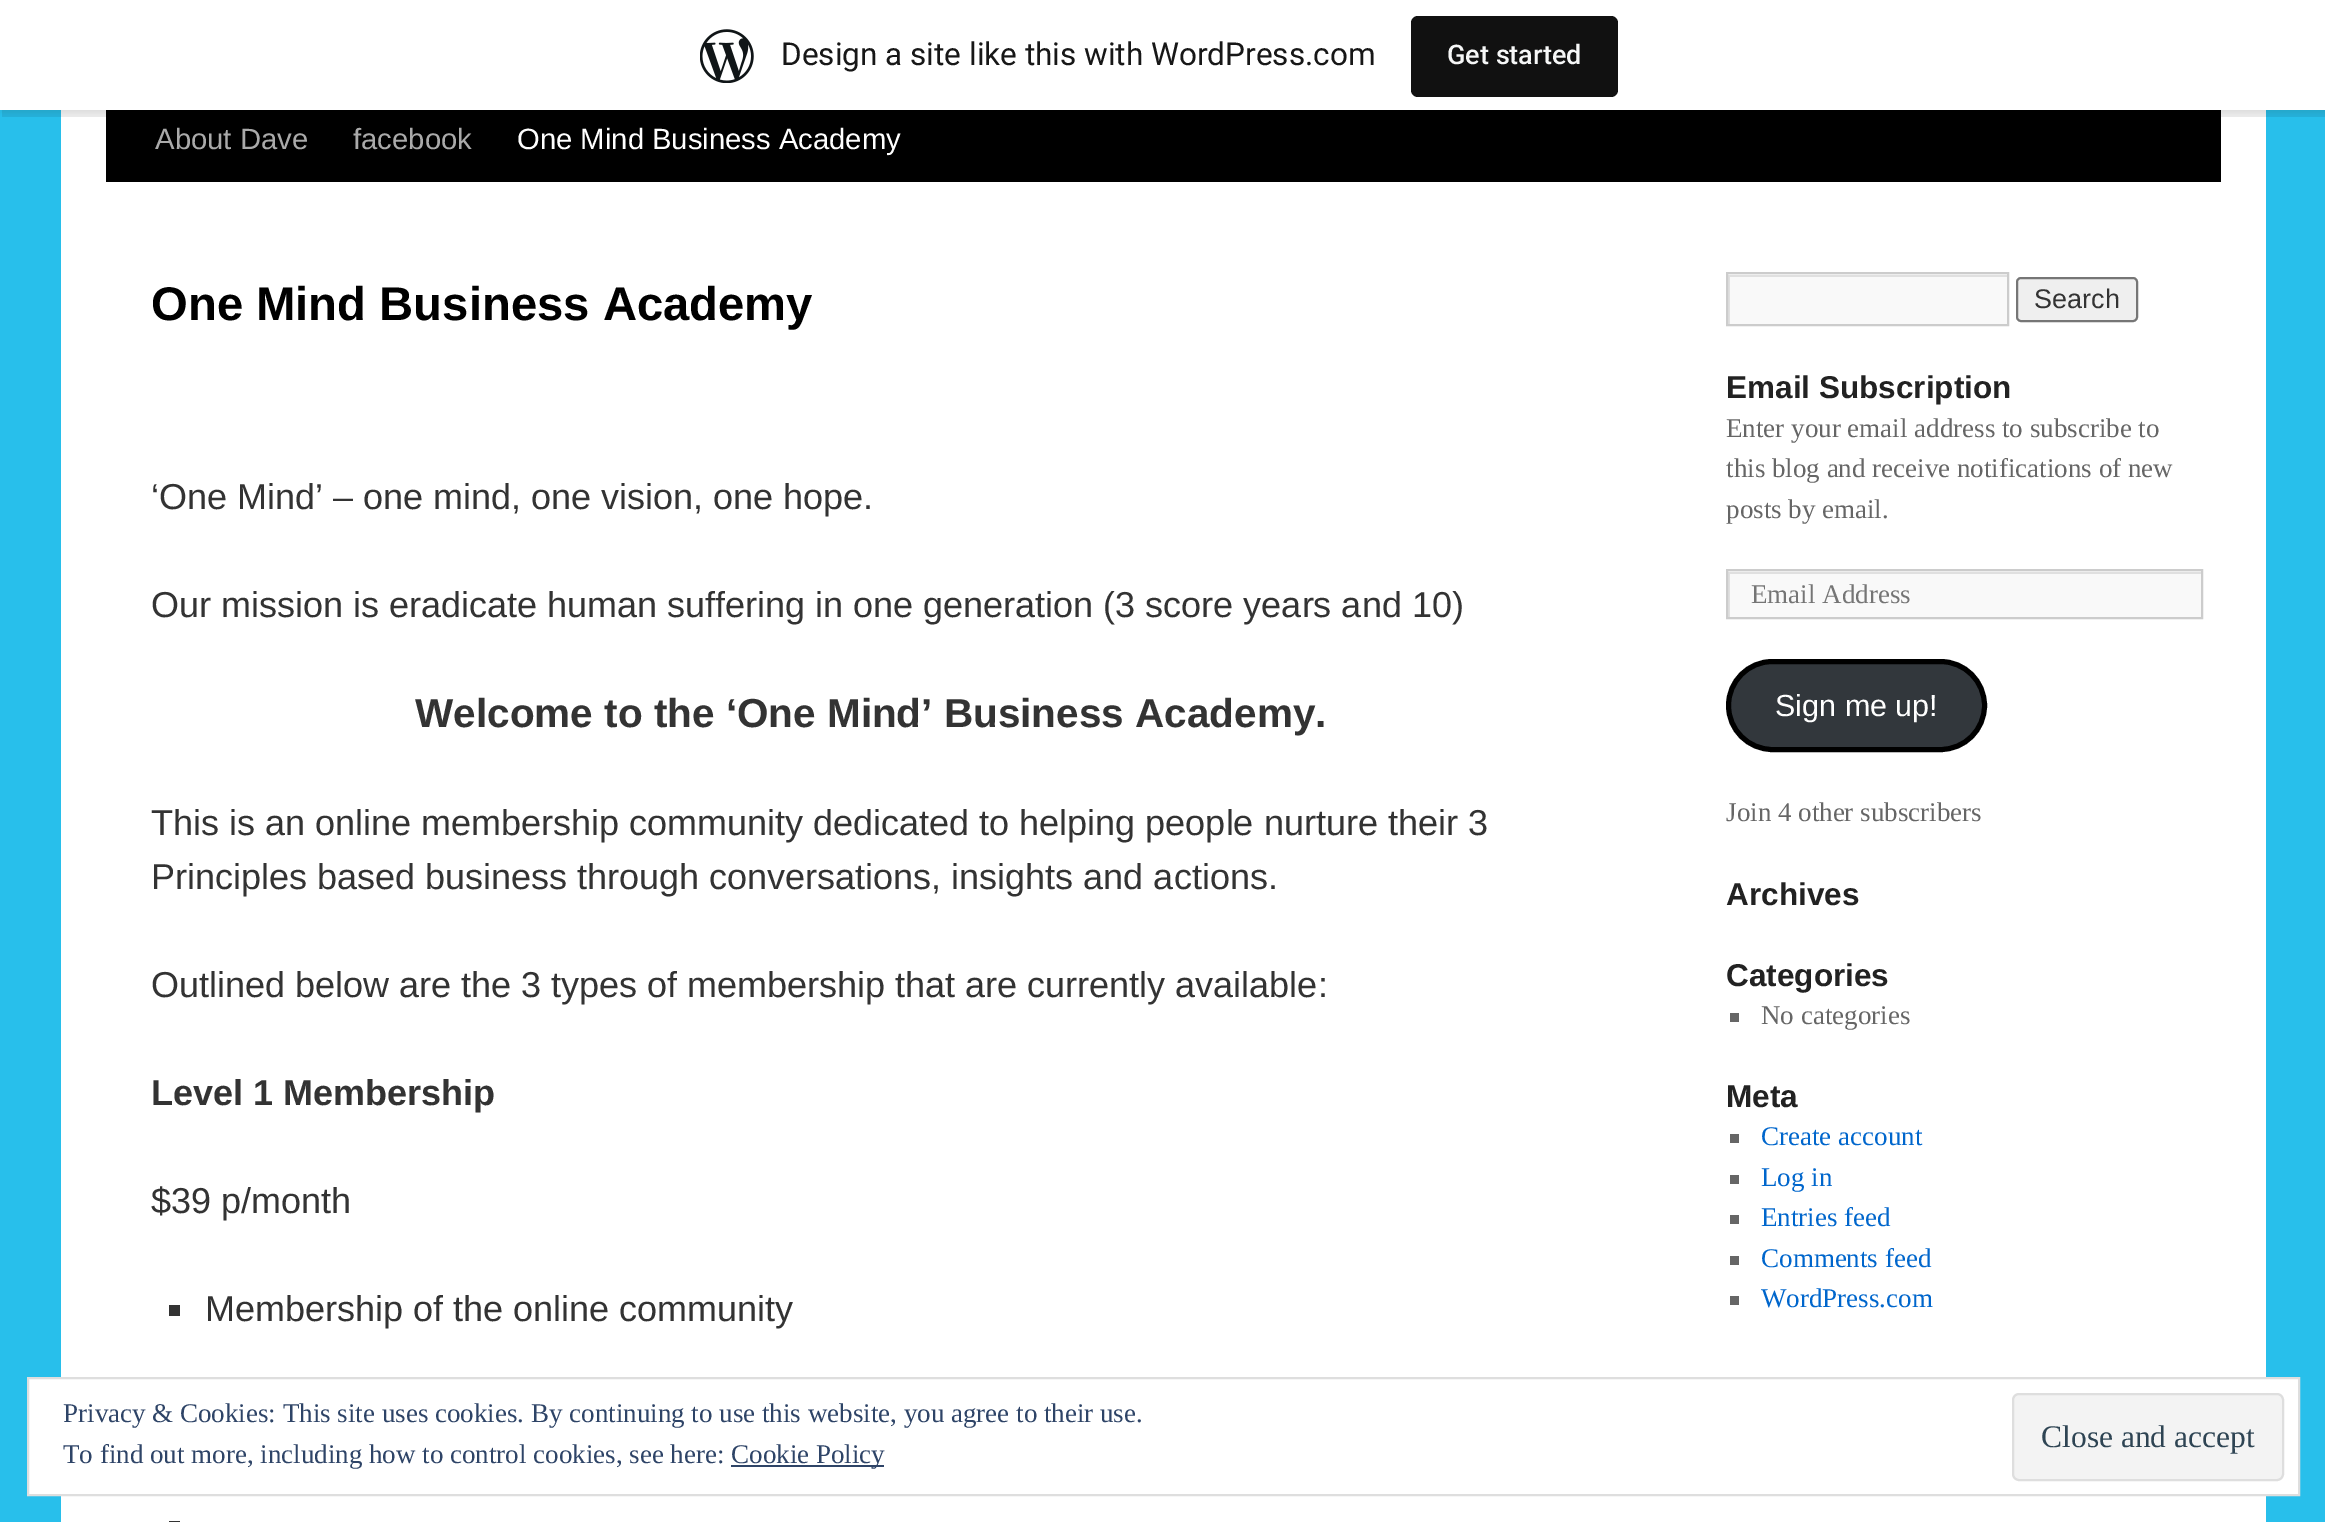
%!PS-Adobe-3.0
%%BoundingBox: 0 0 2325 1522
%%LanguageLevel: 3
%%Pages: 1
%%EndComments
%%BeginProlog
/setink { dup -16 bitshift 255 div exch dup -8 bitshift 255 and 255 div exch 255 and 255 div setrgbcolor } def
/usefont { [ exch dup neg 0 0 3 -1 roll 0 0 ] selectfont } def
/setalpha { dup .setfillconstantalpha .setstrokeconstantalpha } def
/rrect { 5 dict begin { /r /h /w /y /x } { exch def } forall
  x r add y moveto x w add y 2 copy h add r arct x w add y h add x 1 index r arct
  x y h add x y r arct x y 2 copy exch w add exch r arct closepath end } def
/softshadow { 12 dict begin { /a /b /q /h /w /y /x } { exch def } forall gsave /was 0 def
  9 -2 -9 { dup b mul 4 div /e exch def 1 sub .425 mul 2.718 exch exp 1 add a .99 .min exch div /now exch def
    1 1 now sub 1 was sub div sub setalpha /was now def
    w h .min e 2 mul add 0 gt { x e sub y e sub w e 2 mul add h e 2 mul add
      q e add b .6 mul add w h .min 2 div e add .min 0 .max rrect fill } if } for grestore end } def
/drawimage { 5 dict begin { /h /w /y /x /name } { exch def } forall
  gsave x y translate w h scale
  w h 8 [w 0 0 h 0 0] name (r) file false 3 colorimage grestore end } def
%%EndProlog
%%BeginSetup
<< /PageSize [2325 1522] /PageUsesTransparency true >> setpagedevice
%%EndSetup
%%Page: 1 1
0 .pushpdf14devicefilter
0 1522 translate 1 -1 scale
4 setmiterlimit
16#28BFEB setink
0 0 2325 1522 rectfill
16#FFFFFF setink
61 110 2205 1412 rectfill
16#000000 setink
106 110 2115 72 rectfill
0 2 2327 111 0 2 0.05 softshadow
0.08 setalpha
2 110 moveto 2 117 lineto 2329 117 lineto 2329 7 lineto 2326 7 lineto 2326 110 lineto closepath fill
1 setalpha
16#FFFFFF setink
0 0 2325 110 rectfill
(img1.raw) 700 29 54 54 drawimage
/Roboto-Regular 31.5 usefont
16#171717 setink
781 65 moveto (Design a site like this with WordPress.com) show
16#111111 setink
1411 16 207 81 7 rrect fill
/Roboto-Medium 27 usefont
16#F6F7F7 setink
1447 64 moveto (Get started) show
/LiberationSans-Regular 29.25 usefont
16#AAAAAA setink
155 149 moveto (About Dave) show
353 149 moveto (facebook) show
16#FFFFFF setink
517 149 moveto (One Mind Business Academy) show
/LiberationSans-Bold 47.25 usefont
16#000000 setink
151 320 moveto (One Mind Business Academy) show
/LiberationSans-Regular 36 usefont
16#333333 setink
151 509 moveto (‘One Mind’ – one mind, one vision, one hope.) show
151 617 moveto (Our mission is eradicate human suffering in one generation \(3 score years and 10\)) show
/LiberationSans-Bold 40.5 usefont
415 727 moveto (Welcome to the ‘One Mind’ Business Academy.) show
/LiberationSans-Regular 36 usefont
[
    [(This is an online membership community dedicated to helping people nurture their 3) 151 835]
    [(Principles based business through conversations, insights and actions.) 151 889]
    [(Outlined below are the 3 types of membership that are currently available:) 151 997]
] { aload pop moveto show } forall
/LiberationSans-Bold 36 usefont
151 1105 moveto (Level 1 Membership) show
/LiberationSans-Regular 36 usefont
151 1213 moveto ($39 p/month) show
169 1305 11 11 rectfill
205 1321 moveto (Membership of the online community) show
169 1521 11 1 rectfill
16#F9F9F9 setink
1728 274 279 50 rectfill
gsave
1728 275 279 49 rectclip
16#E0E0E0 setink
1505 52 moveto 2230 52 lineto 2230 547 lineto 1505 547 lineto closepath 1730 277 moveto 2009 277 lineto 2009 326 lineto 1730 326 lineto closepath eofill
grestore
16#CCCCCC setink
2 setlinewidth
1727 273 281 52 rectstroke
16#EFEFEF setink
2017 278 120 43 4 rrect gsave fill grestore
16#767676 setink
stroke
/LiberationSans-Regular 27 usefont
16#333333 setink
2034 308 moveto (Search) show
/LiberationSans-Bold 31.5 usefont
16#222222 setink
1726 398 moveto (Email Subscription) show
/LiberationSerif-Regular 27 usefont
16#666666 setink
[
    [(Enter your email address to subscribe to) 1726 437]
    [(this blog and receive notifications of new) 1726 477]
    [(posts by email.) 1726 518]
] { aload pop moveto show } forall
16#F9F9F9 setink
1728 571 473 46 rectfill
gsave
1728 572 473 45 rectclip
16#E0E0E0 setink
1505 349 moveto 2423 349 lineto 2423 839 lineto 1505 839 lineto closepath 1730 574 moveto 2203 574 lineto 2203 619 lineto 1730 619 lineto closepath eofill
grestore
16#CCCCCC setink
1727 570 475 48 rectstroke
16#757575 setink
1751 603 moveto (Email Address) show
16#32373C setink
1728.5 661.5 256 88 44 rrect gsave fill grestore
16#000000 setink
5 setlinewidth
stroke
/LiberationSans-Regular 30.5 usefont
16#FFFFFF setink
1775 716 moveto (Sign me up!) show
/LiberationSerif-Regular 27 usefont
16#666666 setink
1726 821 moveto (Join 4 other subscribers) show
/LiberationSans-Bold 31.5 usefont
16#222222 setink
1726 905 moveto (Archives) show
1726 986 moveto (Categories) show
16#666666 setink
1730 1013 9 9 rectfill
/LiberationSerif-Regular 27 usefont
1761 1024 moveto (No categories) show
/LiberationSans-Bold 31.5 usefont
16#222222 setink
1726 1107 moveto (Meta) show
16#666666 setink
1730 1134 9 9 rectfill
/LiberationSerif-Regular 27 usefont
16#0066CC setink
1761 1145 moveto (Create account) show
16#666666 setink
1730 1175 9 9 rectfill
16#0066CC setink
1761 1186 moveto (Log in) show
16#666666 setink
1730 1215 9 9 rectfill
16#0066CC setink
1761 1226 moveto (Entries feed) show
16#666666 setink
1730 1256 9 9 rectfill
16#0066CC setink
1761 1267 moveto (Comments feed) show
16#666666 setink
1730 1296 9 9 rectfill
16#0066CC setink
1761 1307 moveto (WordPress.com) show
16#FFFFFF setink
28 1378 moveto 2299 1378 lineto 2299 1495 lineto 28 1495 lineto closepath gsave fill grestore
16#DEDEDE setink
2 setlinewidth
stroke
16#2E4467 setink
63 1422 moveto (Privacy & Cookies: This site uses cookies. By continuing to use this website, you agree to their use.) show
16#F3F3F3 setink
2013 1394 270 86 6 rrect gsave fill grestore
16#DEDEDE setink
stroke
/LiberationSerif-Regular 31.5 usefont
16#2E4453 setink
2041 1447 moveto (Close and accept) show
/LiberationSerif-Regular 27 usefont
16#2E4467 setink
63 1463 moveto (To find out more, including how to control cookies, see here:) show
731 1465 153 2 rectfill
731 1463 moveto (Cookie Policy) show
.poppdf14devicefilter showpage
%%EOF
